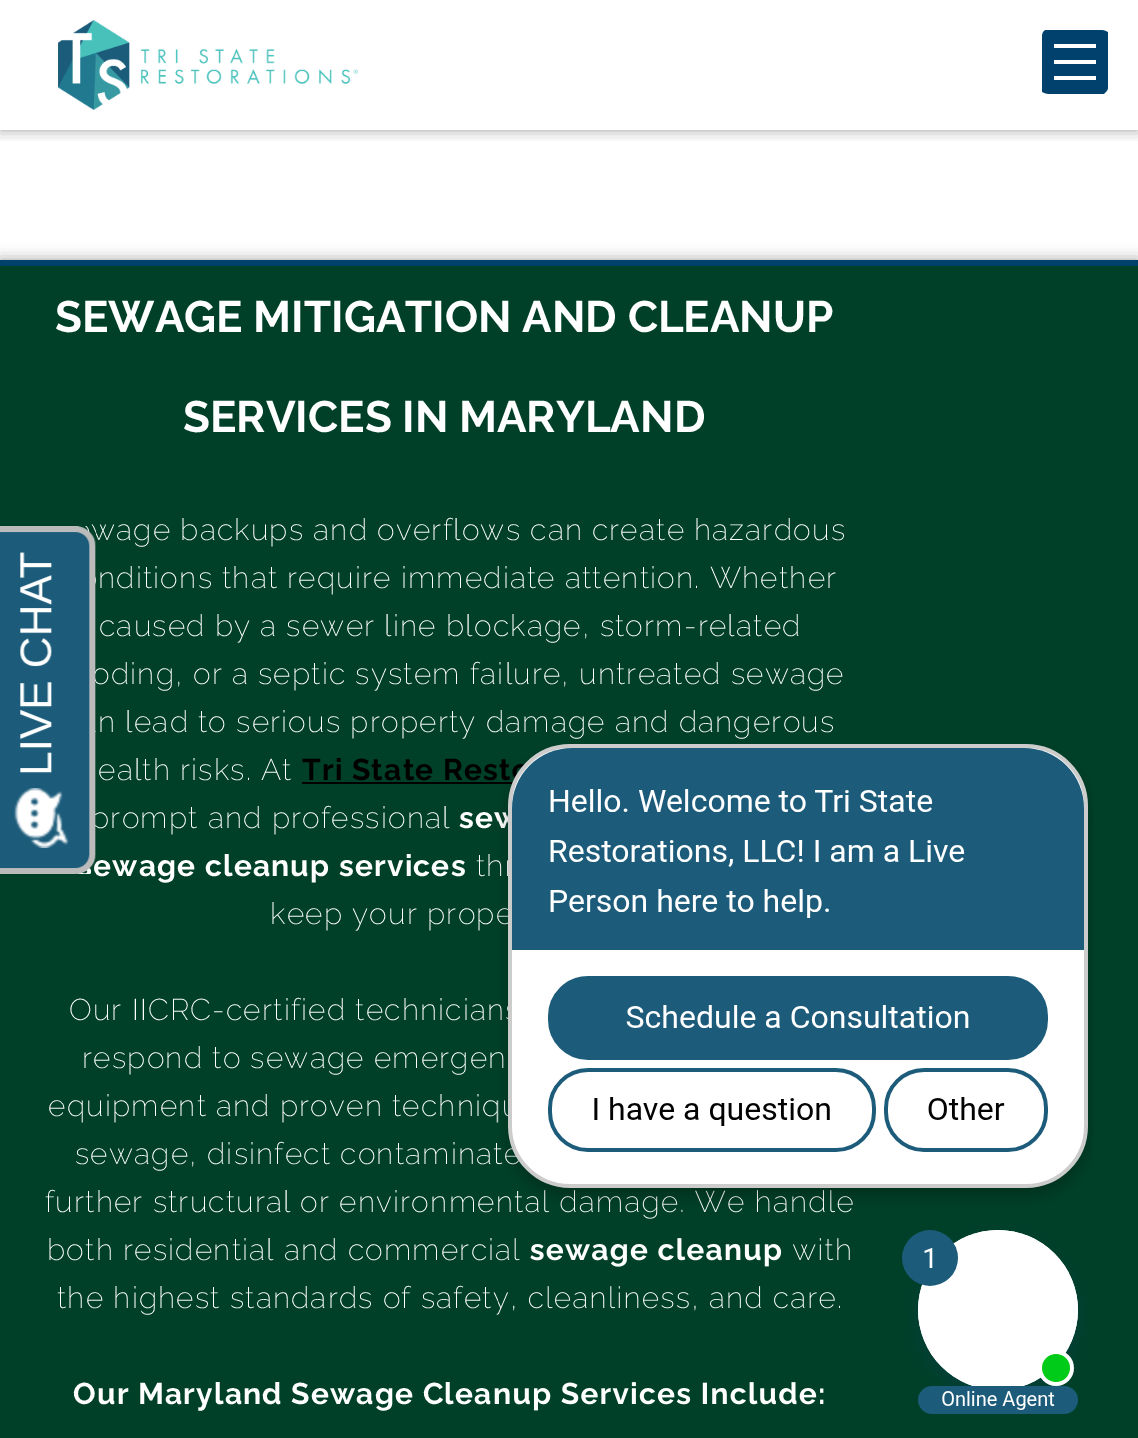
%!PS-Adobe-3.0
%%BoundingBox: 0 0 1138 1438
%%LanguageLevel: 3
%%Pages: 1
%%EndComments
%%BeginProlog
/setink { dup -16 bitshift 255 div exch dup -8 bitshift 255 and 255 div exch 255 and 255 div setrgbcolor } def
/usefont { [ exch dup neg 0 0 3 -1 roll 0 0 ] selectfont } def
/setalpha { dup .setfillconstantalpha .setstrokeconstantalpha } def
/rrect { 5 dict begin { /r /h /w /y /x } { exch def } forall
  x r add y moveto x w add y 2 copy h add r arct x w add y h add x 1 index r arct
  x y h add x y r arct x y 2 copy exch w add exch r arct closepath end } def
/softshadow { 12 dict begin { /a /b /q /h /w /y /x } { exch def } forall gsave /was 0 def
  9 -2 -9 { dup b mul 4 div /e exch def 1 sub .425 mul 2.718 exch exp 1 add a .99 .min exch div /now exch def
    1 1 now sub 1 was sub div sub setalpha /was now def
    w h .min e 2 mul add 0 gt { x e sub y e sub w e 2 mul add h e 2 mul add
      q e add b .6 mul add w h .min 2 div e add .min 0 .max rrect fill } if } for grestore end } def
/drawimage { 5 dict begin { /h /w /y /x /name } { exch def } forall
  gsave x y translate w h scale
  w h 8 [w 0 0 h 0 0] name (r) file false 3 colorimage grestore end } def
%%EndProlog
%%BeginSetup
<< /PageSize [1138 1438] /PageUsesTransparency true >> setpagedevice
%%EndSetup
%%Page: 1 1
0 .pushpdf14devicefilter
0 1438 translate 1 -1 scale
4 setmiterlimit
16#FFFFFF setink
0 0 1138 1438 rectfill
gsave
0 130 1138 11 rectclip
16#000000 setink
0 0 1138 130 0 7 0.38 softshadow
grestore
(img1.raw) 58 20 300 90 drawimage
(img2.raw) 1042 30 66 64 drawimage
16#000000 setink
0 260 1138 120 0 7 0.38 softshadow
16#00416B setink
0 260 1138 6 rectfill
16#004028 setink
0 266 1138 1172 rectfill
/Raleway-Bold 44 usefont
16#FFFFFF setink
55 332 moveto (SEWAGE MITIGATION AND CLEANUP) show
183 432 moveto (SERVICES IN MARYLAND) show
/Raleway-ExtraLight 30 usefont
91 540 moveto 1.2 0 (wage backups and overflows can create hazardous) ashow
98 588 moveto 1.2 0 (nditions that require immediate attention. Whether) ashow
99 636 moveto 1.2 0 (caused by a sewer line blockage, storm-related) ashow
92 684 moveto 1.2 0 (oding, or a septic system failure, untreated sewage) ashow
98 732 moveto 1.2 0 (n lead to serious property damage and dangerous) ashow
98 780 moveto 1.2 0 (ealth risks. At) ashow
/Raleway-Bold 30 usefont
16#000000 setink
302 780 moveto 1.2 0 (Tri State Rest) ashow
302 782 211 2 rectfill
/Raleway-ExtraLight 30 usefont
16#FFFFFF setink
91 828 moveto 1.2 0 (prompt and professional) ashow
/Raleway-Bold 30 usefont
459 828 moveto 1.2 0 (sew) ashow
93 876 moveto 1.2 0 (ewage cleanup services) ashow
/Raleway-ExtraLight 30 usefont
476 876 moveto 1.2 0 (thr) ashow
270 924 moveto 1.2 0 (keep your prope) ashow
69 1020 moveto 1.2 0 (Our IICRC-certified technician) ashow
82 1068 moveto 1.2 0 (respond to sewage emergen) ashow
48 1116 moveto 1.2 0 (equipment and proven techniq) ashow
75 1164 moveto 1.2 0 (sewage, disinfect contaminate) ashow
45 1212 moveto 1.2 0 (further structural or environmental damage. We handle) ashow
47 1260 moveto 1.2 0 (both residential and commercial) ashow
/Raleway-Bold 30 usefont
530 1260 moveto 1.2 0 (sewage cleanup) ashow
/Raleway-ExtraLight 30 usefont
792 1260 moveto 1.2 0 (with) ashow
57 1308 moveto 1.2 0 (the highest standards of safety, cleanliness, and care.) ashow
/Raleway-Bold 30 usefont
73 1404 moveto 1.2 0 (Our Maryland Sewage Cleanup Services Include:) ashow
(img3.raw) 0 526 96 348 drawimage
(img4.raw) 498 744 595 670 drawimage
.poppdf14devicefilter showpage
%%EOF
